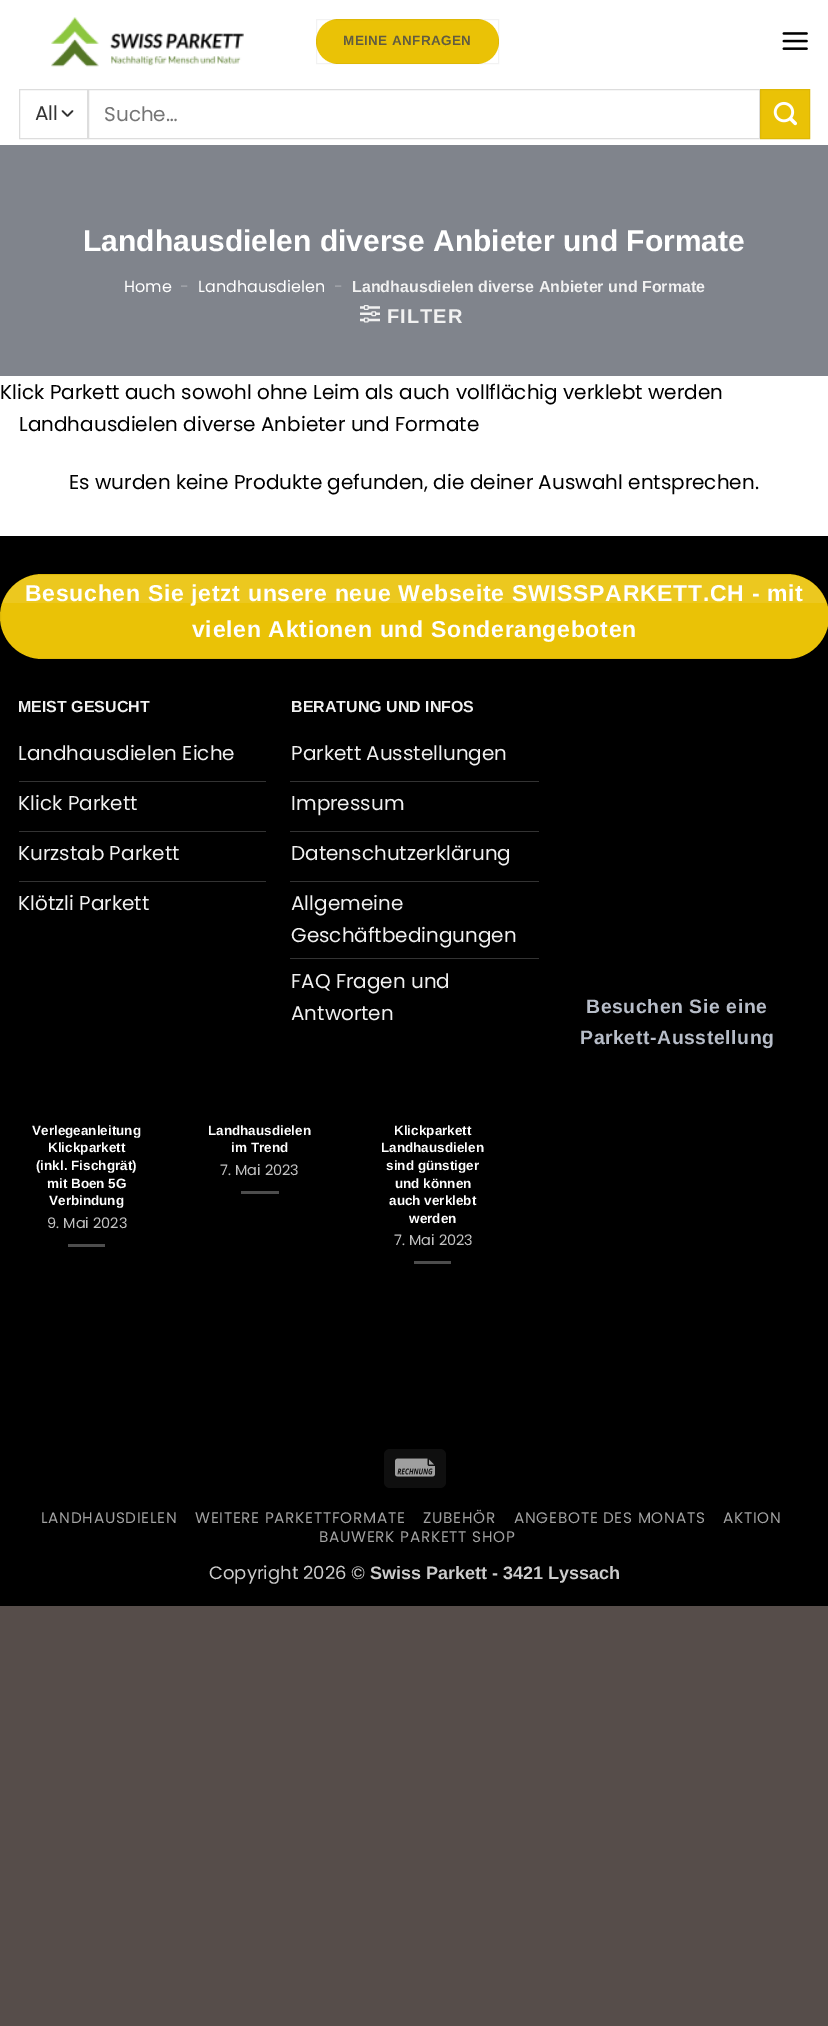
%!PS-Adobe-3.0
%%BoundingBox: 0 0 828 2026
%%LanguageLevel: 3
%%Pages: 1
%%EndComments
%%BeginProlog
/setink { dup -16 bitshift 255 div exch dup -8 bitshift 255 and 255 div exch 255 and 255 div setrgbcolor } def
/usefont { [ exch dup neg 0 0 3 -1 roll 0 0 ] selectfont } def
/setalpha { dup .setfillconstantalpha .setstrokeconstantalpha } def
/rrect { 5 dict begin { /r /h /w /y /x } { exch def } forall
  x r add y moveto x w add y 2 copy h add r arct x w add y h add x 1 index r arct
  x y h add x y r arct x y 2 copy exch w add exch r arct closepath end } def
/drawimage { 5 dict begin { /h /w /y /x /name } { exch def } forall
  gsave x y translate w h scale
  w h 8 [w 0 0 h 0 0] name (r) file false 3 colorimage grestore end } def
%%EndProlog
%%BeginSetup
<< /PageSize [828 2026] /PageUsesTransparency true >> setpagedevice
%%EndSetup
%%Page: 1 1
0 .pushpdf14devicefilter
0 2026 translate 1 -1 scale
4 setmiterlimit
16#564D4A setink
0 0 828 2026 rectfill
16#FFFFFF setink
0 0 828 536 rectfill
(img1.raw) 51 17 193 50 drawimage
16#EAC206 setink
316 19 183 45 22.5 rrect fill
0.05 setalpha
16#000000 setink
316.5 19.5 182 44 rectstroke
/LiberationSans-Bold 13.5 usefont
1 setalpha
16#625C40 setink
343 45 moveto 0.4 0 (MEINE ANFRAGEN) ashow
(img2.raw) 782 32 26 18 drawimage
16#333333 setink
1.7 setlinewidth
1 setlinecap
1 setlinejoin
62.5 111 moveto 67.5 116 lineto 72.5 111 lineto stroke
16#DDDDDD setink
1 setlinewidth
0 setlinecap
0 setlinejoin
19.5 89.5 68 49 rectstroke
/Poppins-Regular 20 usefont
16#333333 setink
35 120 moveto (All) show
16#DDDDDD setink
88.5 89.5 671 49 rectstroke
16#757575 setink
104 121 moveto (Suche…) show
16#EAC206 setink
760.5 89.5 moveto 809.5 89.5 lineto 809.5 138.5 lineto 760.5 138.5 lineto closepath gsave fill grestore
16#DEB806 setink
stroke
(img3.raw) 773 101 24 25 drawimage
16#80848C setink
0 145 828 231 rectfill
/LiberationSans-Bold 30 usefont
16#FFFFFF setink
83 251 moveto (Landhausdielen diverse Anbieter und Formate) show
/Poppins-Regular 16 usefont
124 292 moveto (Home) show
16#A8AAAF setink
180 292 moveto (-) show
16#FFFFFF setink
198 292 moveto (Landhausdielen) show
16#A8AAAF setink
334 292 moveto (-) show
/LiberationSans-Bold 16 usefont
16#F1F1F1 setink
352 292 moveto (Landhausdielen diverse Anbieter und Formate) show
(img4.raw) 360 305 20 18 drawimage
/LiberationSans-Bold 20 usefont
387 323 moveto 1 0 (FILTER) ashow
/Poppins-Regular 20 usefont
16#000000 setink
[
    [(Klick Parkett auch sowohl ohne Leim als auch vollflächig verklebt werden) 0 399]
    [(Landhausdielen diverse Anbieter und Formate) 19 431]
    [(Es wurden keine Produkte gefunden, die deiner Auswahl entsprechen.) 69 489]
] { aload pop moveto show } forall
0 536 828 1070 rectfill
16#EAC206 setink
0 574 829 85 42.5 rrect fill
0.05 setalpha
16#000000 setink
0.5 574.5 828 84 rectstroke
gsave
1 575 827 83 41.5 rrect clip newpath
0.1 setalpha
16#FFFFFF setink
3 575 823 28 rectfill
grestore
/LiberationSans-Bold 23 usefont
1 setalpha
16#FFFFFF setink
25 601 moveto 0.7 0 (Besuchen Sie jetzt unsere neue Webseite SWISSPARKETT.CH - mit) ashow
192 637 moveto 0.7 0 (vielen Aktionen und Sonderangeboten) ashow
/LiberationSans-Bold 16 usefont
16#F1F1F1 setink
18 712 moveto (MEIST GESUCHT) show
16#333333 setink
19 781 247 1 rectfill
/Poppins-Regular 20 usefont
16#F1F1F1 setink
18 760 moveto (Landhausdielen Eiche) show
16#333333 setink
19 831 247 1 rectfill
16#F1F1F1 setink
18 810 moveto (Klick Parkett) show
16#333333 setink
19 881 247 1 rectfill
16#F1F1F1 setink
18 860 moveto (Kurzstab Parkett) show
18 910 moveto (Klötzli Parkett) show
/LiberationSans-Bold 16 usefont
291 712 moveto (BERATUNG UND INFOS) show
16#333333 setink
290 781 249 1 rectfill
/Poppins-Regular 20 usefont
16#F1F1F1 setink
291 760 moveto (Parkett Ausstellungen) show
16#333333 setink
290 831 249 1 rectfill
16#F1F1F1 setink
291 810 moveto (Impressum) show
16#333333 setink
290 881 249 1 rectfill
16#F1F1F1 setink
291 860 moveto (Datenschutzerklärung) show
16#333333 setink
290 958 249 1 rectfill
16#F1F1F1 setink
[
    [(Allgemeine) 291 910]
    [(Geschäftbedingungen) 291 942]
    [(FAQ Fragen und) 291 988]
    [(Antworten) 291 1020]
] { aload pop moveto show } forall
/LiberationSans-Bold 19.4 usefont
16#B7BDC8 setink
586 1013 moveto 0.6 0 (Besuchen Sie eine) ashow
580 1044 moveto 0.6 0 (Parkett-Ausstellung) ashow
/LiberationSans-Bold 13.5 usefont
16#FFFFFF setink
[
    [(Verlegeanleitung) 32 1135]
    [(Klickparkett) 48 1152]
    [(\(inkl. Fischgrät\)) 36 1170]
    [(mit Boen 5G) 47 1188]
    [(Verbindung) 49 1205]
] { aload pop moveto show } forall
/Poppins-Regular 14.5 usefont
16#C1C1C1 setink
47 1228 moveto (9. Mai 2023) show
16#4D4D4D setink
68 1244 37 3 rectfill
/LiberationSans-Bold 13.5 usefont
16#FFFFFF setink
208 1135 moveto (Landhausdielen) show
231 1152 moveto (im Trend) show
/Poppins-Regular 14.5 usefont
16#C1C1C1 setink
220 1175 moveto (7. Mai 2023) show
16#4D4D4D setink
241 1191 38 3 rectfill
/LiberationSans-Bold 13.5 usefont
16#FFFFFF setink
[
    [(Klickparkett) 394 1135]
    [(Landhausdielen) 381 1152]
    [(sind günstiger) 386 1170]
    [(und können) 395 1188]
    [(auch verklebt) 389 1205]
    [(werden) 409 1223]
] { aload pop moveto show } forall
/Poppins-Regular 14.5 usefont
16#C1C1C1 setink
394 1245 moveto (7. Mai 2023) show
16#4D4D4D setink
414 1261 37 3 rectfill
16#0F0F0F setink
384 1449 62 39 6 rrect fill
(img5.raw) 395 1458 40 19 drawimage
/Poppins-Regular 15.25 usefont
16#A3A3A3 setink
41 1523 moveto 0.75 0 (LANDHAUSDIELEN) ashow
195 1523 moveto 0.75 0 (WEITERE PARKETTFORMATE) ashow
423 1523 moveto 0.75 0 (ZUBEHÖR) ashow
514 1523 moveto 0.75 0 (ANGEBOTE DES MONATS) ashow
723 1523 moveto 0.75 0 (AKTION) ashow
319 1542 moveto 0.75 0 (BAUWERK PARKETT SHOP) ashow
/Poppins-Regular 18 usefont
16#CCCCCC setink
209 1579 moveto (Copyright 2026 ©) show
/LiberationSans-Bold 18 usefont
370 1579 moveto (Swiss Parkett - 3421 Lyssach) show
.poppdf14devicefilter showpage
%%EOF
